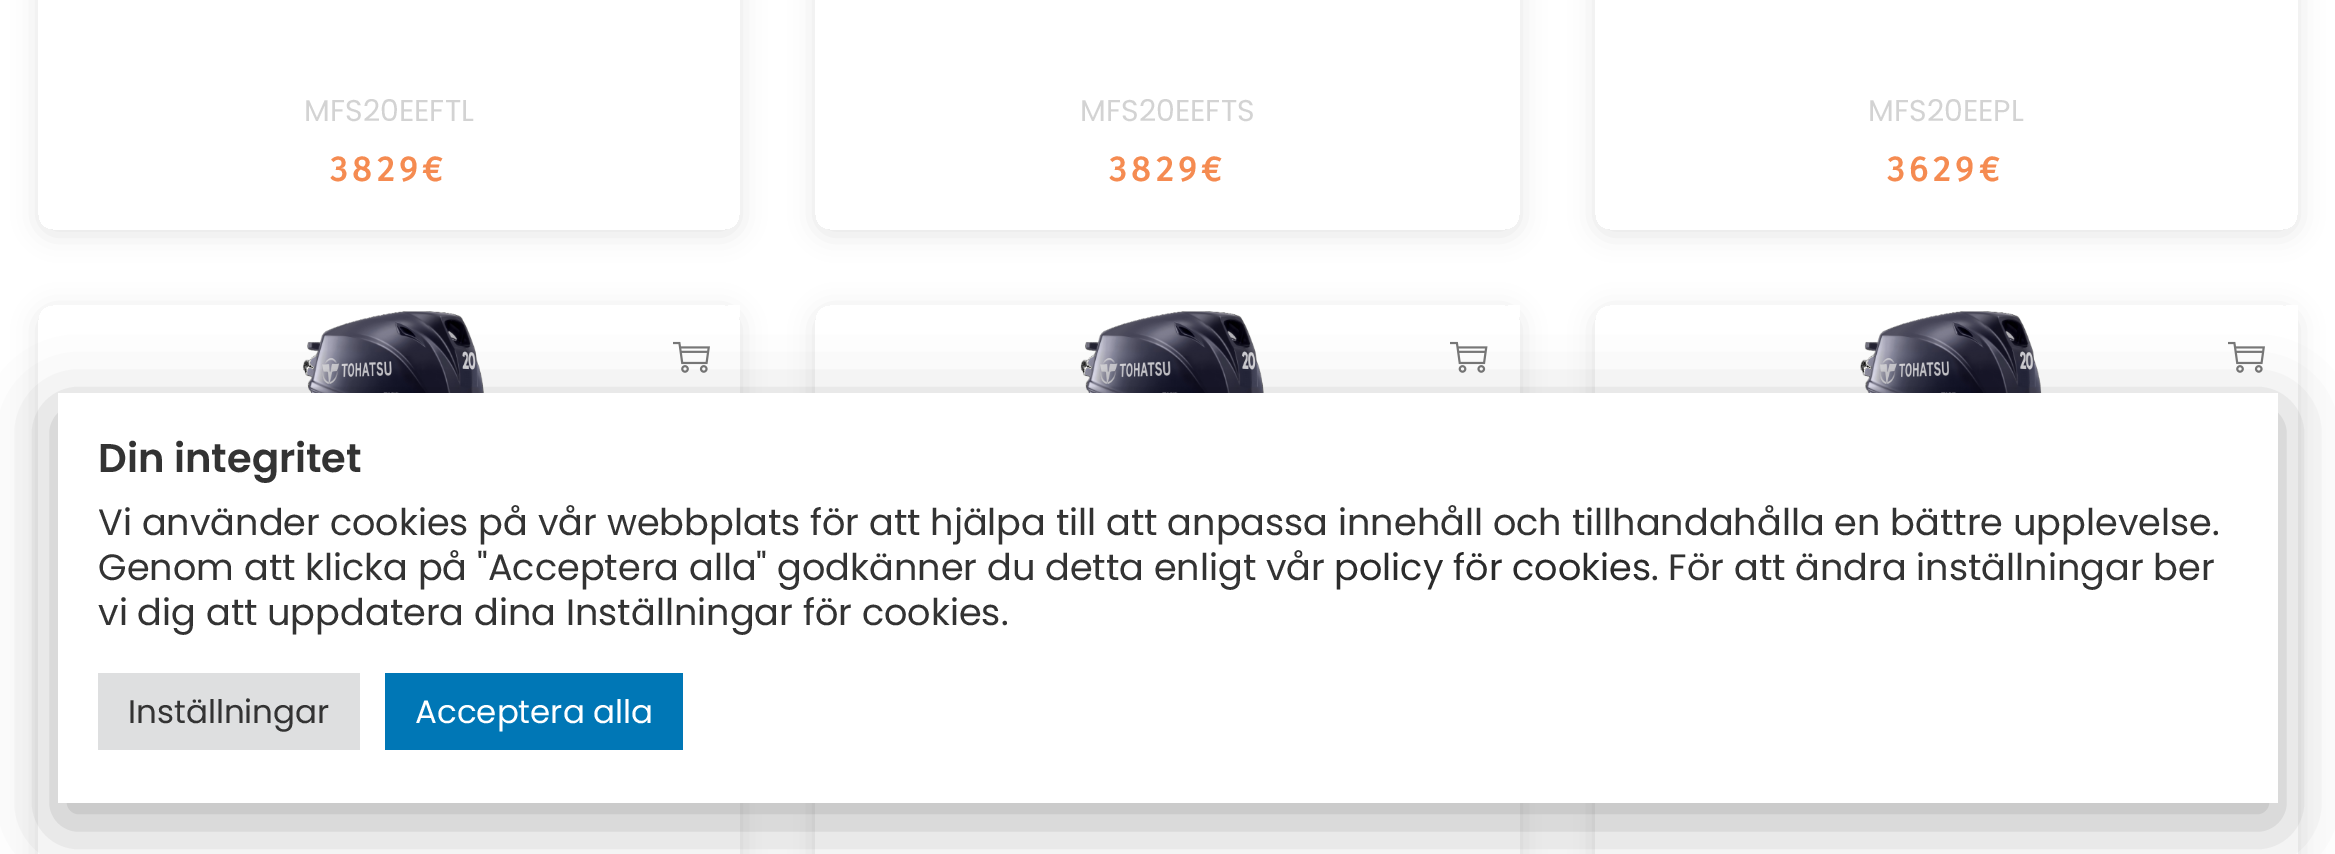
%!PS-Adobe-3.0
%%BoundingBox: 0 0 2335 854
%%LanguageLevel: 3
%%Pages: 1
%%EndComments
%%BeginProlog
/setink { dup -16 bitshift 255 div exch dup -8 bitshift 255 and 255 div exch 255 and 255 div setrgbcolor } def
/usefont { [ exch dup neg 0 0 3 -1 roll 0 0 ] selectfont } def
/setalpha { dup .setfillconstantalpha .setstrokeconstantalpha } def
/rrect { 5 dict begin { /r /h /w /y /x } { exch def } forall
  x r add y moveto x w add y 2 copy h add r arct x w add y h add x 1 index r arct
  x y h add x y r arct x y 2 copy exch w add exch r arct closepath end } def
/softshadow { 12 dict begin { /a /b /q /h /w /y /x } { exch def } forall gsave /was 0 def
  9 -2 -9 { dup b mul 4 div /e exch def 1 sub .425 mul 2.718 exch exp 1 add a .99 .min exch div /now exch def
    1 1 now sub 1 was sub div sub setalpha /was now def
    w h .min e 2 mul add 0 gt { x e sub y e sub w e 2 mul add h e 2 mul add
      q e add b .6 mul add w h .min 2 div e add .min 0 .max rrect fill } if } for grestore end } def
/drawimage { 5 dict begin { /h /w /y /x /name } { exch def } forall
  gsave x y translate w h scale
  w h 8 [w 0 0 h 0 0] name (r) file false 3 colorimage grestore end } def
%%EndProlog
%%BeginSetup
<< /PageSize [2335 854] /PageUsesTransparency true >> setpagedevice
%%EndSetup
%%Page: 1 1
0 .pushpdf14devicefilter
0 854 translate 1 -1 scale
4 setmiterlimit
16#FFFFFF setink
0 0 2335 854 rectfill
gsave
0 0 moveto 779 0 lineto 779 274 lineto 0 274 lineto closepath 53 -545 moveto 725 -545 lineto 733.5 -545 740 -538.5 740 -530 curveto 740 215 lineto 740 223.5 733.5 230 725 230 curveto 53 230 lineto 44.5 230 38 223.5 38 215 curveto 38 -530 lineto 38 -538.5 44.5 -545 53 -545 curveto closepath eoclip newpath
16#000000 setink
38 -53 702 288 15 12.5 0.1 softshadow
grestore
/Poppins-Regular 30 usefont
16#D3D3D3 setink
304 121 moveto (MFS20EEFTL) show
/FiraSans-Bold 35 usefont
16#F58B51 setink
330 181 moveto 5 0 (3829€) ashow
gsave
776 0 moveto 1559 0 lineto 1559 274 lineto 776 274 lineto closepath 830 -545 moveto 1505 -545 lineto 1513.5 -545 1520 -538.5 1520 -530 curveto 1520 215 lineto 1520 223.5 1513.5 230 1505 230 curveto 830 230 lineto 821.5 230 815 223.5 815 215 curveto 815 -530 lineto 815 -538.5 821.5 -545 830 -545 curveto closepath eoclip newpath
16#000000 setink
815 -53 705 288 15 12.5 0.1 softshadow
grestore
/Poppins-Regular 30 usefont
16#D3D3D3 setink
1080 121 moveto (MFS20EEFTS) show
/FiraSans-Bold 35 usefont
16#F58B51 setink
1109 181 moveto 5 0 (3829€) ashow
gsave
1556 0 moveto 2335 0 lineto 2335 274 lineto 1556 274 lineto closepath 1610 -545 moveto 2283 -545 lineto 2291.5 -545 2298 -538.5 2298 -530 curveto 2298 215 lineto 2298 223.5 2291.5 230 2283 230 curveto 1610 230 lineto 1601.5 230 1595 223.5 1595 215 curveto 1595 -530 lineto 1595 -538.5 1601.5 -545 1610 -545 curveto closepath eoclip newpath
16#000000 setink
1595 -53 703 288 15 12.5 0.1 softshadow
grestore
/Poppins-Regular 30 usefont
16#D3D3D3 setink
1868 121 moveto (MFS20EEPL) show
/FiraSans-Bold 35 usefont
16#F58B51 setink
1887 181 moveto 5 0 (3629€) ashow
gsave
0 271 moveto 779 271 lineto 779 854 lineto 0 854 lineto closepath 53 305 moveto 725 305 lineto 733.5 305 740 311.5 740 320 curveto 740 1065 lineto 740 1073.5 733.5 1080 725 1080 curveto 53 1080 lineto 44.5 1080 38 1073.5 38 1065 curveto 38 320 lineto 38 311.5 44.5 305 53 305 curveto closepath eoclip newpath
16#000000 setink
38 310 702 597 15 12.5 0.1 softshadow
grestore
(img1.raw) 302 311 182 82 drawimage
16#FFFFFF setink
728 305 12 12 rectfill
(img2.raw) 673 341 37 32 drawimage
gsave
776 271 moveto 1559 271 lineto 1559 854 lineto 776 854 lineto closepath 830 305 moveto 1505 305 lineto 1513.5 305 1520 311.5 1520 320 curveto 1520 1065 lineto 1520 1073.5 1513.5 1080 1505 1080 curveto 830 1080 lineto 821.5 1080 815 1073.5 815 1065 curveto 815 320 lineto 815 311.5 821.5 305 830 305 curveto closepath eoclip newpath
16#000000 setink
815 310 705 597 15 12.5 0.1 softshadow
grestore
(img3.raw) 1080 311 184 82 drawimage
1508 305 12 12 rectfill
(img4.raw) 1450 341 38 32 drawimage
gsave
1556 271 moveto 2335 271 lineto 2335 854 lineto 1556 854 lineto closepath 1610 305 moveto 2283 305 lineto 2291.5 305 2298 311.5 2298 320 curveto 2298 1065 lineto 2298 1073.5 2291.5 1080 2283 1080 curveto 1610 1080 lineto 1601.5 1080 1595 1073.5 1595 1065 curveto 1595 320 lineto 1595 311.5 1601.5 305 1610 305 curveto closepath eoclip newpath
16#000000 setink
1595 310 703 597 15 12.5 0.1 softshadow
grestore
(img5.raw) 1860 311 182 82 drawimage
2286 305 12 100 rectfill
(img2.raw) 2228 341 37 32 drawimage
16#000000 setink
58 413 2220 410 0 35 0.28 softshadow
16#FFFFFF setink
58 393 2220 410 rectfill
/Poppins-SemiBold 40 usefont
16#333333 setink
98 472 moveto (Din integritet) show
/Poppins-Regular 36.67 usefont
98 535 moveto (Vi använder cookies på vår webbplats för att hjälpa till att anpassa innehåll och tillhandahålla en bättre upplevelse.) show
98 580 moveto (Genom att klicka på "Acceptera alla" godkänner du detta enligt vår) show
16#2B2B2B setink
1334 580 moveto (policy för cookies) show
16#333333 setink
1651 580 moveto (. För att ändra inställningar ber) show
98 625 moveto (vi dig att uppdatera dina Inställningar för cookies.) show
16#DEDFE0 setink
98 673 262 77 rectfill
/Poppins-Regular 32.5 usefont
16#333333 setink
128 723 moveto (Inställningar) show
16#0077B6 setink
385 673 298 77 rectfill
16#FFFFFF setink
415 723 moveto (Acceptera alla) show
.poppdf14devicefilter showpage
%%EOF
